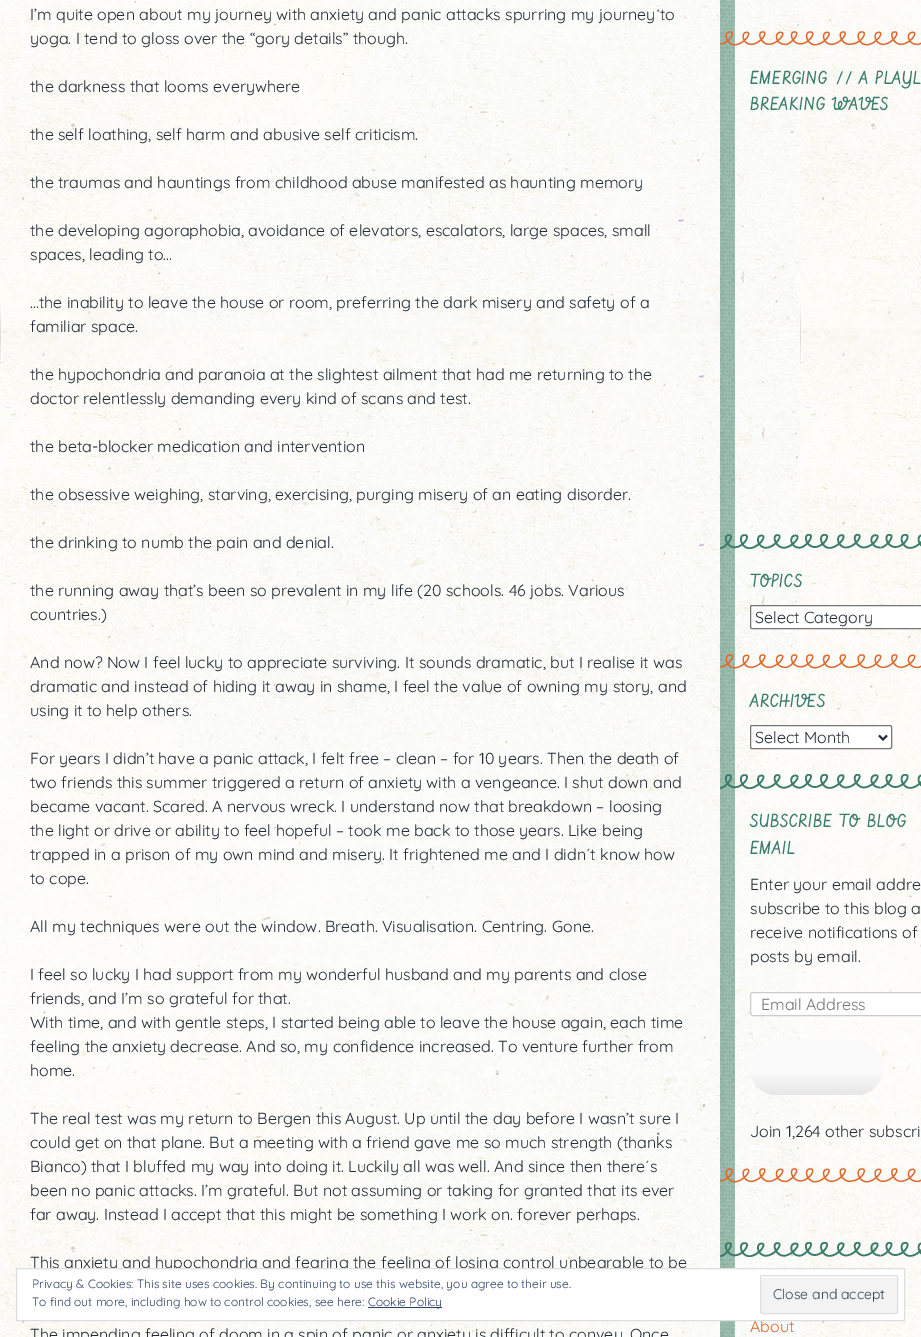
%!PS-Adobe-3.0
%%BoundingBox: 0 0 921 1337
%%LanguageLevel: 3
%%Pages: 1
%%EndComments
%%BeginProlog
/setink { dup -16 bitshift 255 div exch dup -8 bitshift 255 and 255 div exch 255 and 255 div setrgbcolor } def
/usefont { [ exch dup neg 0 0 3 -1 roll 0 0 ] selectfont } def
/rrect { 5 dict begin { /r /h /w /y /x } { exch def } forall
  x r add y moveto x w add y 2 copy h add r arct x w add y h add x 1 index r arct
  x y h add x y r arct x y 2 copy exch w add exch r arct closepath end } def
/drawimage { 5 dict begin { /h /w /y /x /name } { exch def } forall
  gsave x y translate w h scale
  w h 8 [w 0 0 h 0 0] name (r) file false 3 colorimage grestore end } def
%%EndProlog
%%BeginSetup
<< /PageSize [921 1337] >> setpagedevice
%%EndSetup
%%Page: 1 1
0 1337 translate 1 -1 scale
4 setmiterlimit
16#FFFFFF setink
0 0 921 1337 rectfill
(img1.raw) 0 0 921 1337 drawimage
(img2.raw) 720 0 15 1337 drawimage
/Quicksand-Regular 16 usefont
16#212C36 setink
[
    [(I’m quite open about my journey with anxiety and panic attacks spurring my journey to) 30 20]
    [(yoga. I tend to gloss over the “gory details” though.) 30 44]
    [(the darkness that looms everywhere) 30 92]
    [(the self loathing, self harm and abusive self criticism.) 30 140]
    [(the traumas and hauntings from childhood abuse manifested as haunting memory) 30 188]
    [(the developing agoraphobia, avoidance of elevators, escalators, large spaces, small) 30 236]
    [(spaces, leading to…) 30 260]
    [(…the inability to leave the house or room, preferring the dark misery and safety of a) 30 308]
    [(familiar space.) 30 332]
    [(the hypochondria and paranoia at the slightest ailment that had me returning to the) 30 380]
    [(doctor relentlessly demanding every kind of scans and test.) 30 404]
    [(the beta-blocker medication and intervention) 30 452]
    [(the obsessive weighing, starving, exercising, purging misery of an eating disorder.) 30 500]
    [(the drinking to numb the pain and denial.) 30 548]
    [(the running away that’s been so prevalent in my life \(20 schools. 46 jobs. Various) 30 596]
    [(countries.\)) 30 620]
    [(And now? Now I feel lucky to appreciate surviving. It sounds dramatic, but I realise it was) 30 668]
    [(dramatic and instead of hiding it away in shame, I feel the value of owning my story, and) 30 692]
    [(using it to help others.) 30 716]
    [(For years I didn’t have a panic attack, I felt free – clean – for 10 years. Then the death of) 30 764]
    [(two friends this summer triggered a return of anxiety with a vengeance. I shut down and) 30 788]
    [(became vacant. Scared. A nervous wreck. I understand now that breakdown – loosing) 30 812]
    [(the light or drive or ability to feel hopeful – took me back to those years. Like being) 30 836]
    [(trapped in a prison of my own mind and misery. It frightened me and I didn´t know how) 30 860]
    [(to cope.) 30 884]
    [(All my techniques were out the window. Breath. Visualisation. Centring. Gone.) 30 932]
    [(I feel so lucky I had support from my wonderful husband and my parents and close) 30 980]
    [(friends, and I’m so grateful for that.) 30 1004]
    [(With time, and with gentle steps, I started being able to leave the house again, each time) 30 1028]
    [(feeling the anxiety decrease. And so, my confidence increased. To venture further from) 30 1052]
    [(home.) 30 1076]
    [(The real test was my return to Bergen this August. Up until the day before I wasn’t sure I) 30 1124]
    [(could get on that plane. But a meeting with a friend gave me so much strength \(thanks) 30 1148]
    [(Bianco\) that I bluffed my way into doing it. Luckily all was well. And since then there´s) 30 1172]
    [(been no panic attacks. I’m grateful. But not assuming or taking for granted that its ever) 30 1196]
    [(far away. Instead I accept that this might be something I work on. forever perhaps.) 30 1220]
    [(This anxiety and hypochondria and fearing the feeling of losing control unbearable to be) 30 1268]
    [(The impending feeling of doom in a spin of panic or anxiety is difficult to convey. Once) 30 1340]
] { aload pop moveto show } forall
(img3.raw) 720 31 201 15 drawimage
(img4.raw) 720 534 201 15 drawimage
/Vibur-Regular 17.5 usefont
16#397C6A setink
750 84 moveto (EMERGING // A PLAYL) show
750 110 moveto (BREAKING WAVES) show
(img5.raw) 720 654 201 15 drawimage
750 587 moveto (TOPICS) show
16#FFFFFF setink
750.5 605.5 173 23 1.5 rrect gsave fill grestore
16#767676 setink
stroke
/Quicksand-Regular 16 usefont
16#212C36 setink
755 623 moveto (Select Category) show
(img6.raw) 720 774 201 15 drawimage
/Vibur-Regular 17.5 usefont
16#397C6A setink
750 707 moveto (ARCHIVES) show
16#FFFFFF setink
750.5 725.5 141 23 1.5 rrect gsave fill grestore
16#767676 setink
stroke
16#212C36 setink
2 setlinewidth
879 735.5 moveto 883 739.5 lineto 887 735.5 lineto stroke
/Quicksand-Regular 16 usefont
755 743 moveto (Select Month) show
(img7.raw) 720 1168 201 15 drawimage
/Vibur-Regular 17.5 usefont
16#397C6A setink
750 827 moveto (SUBSCRIBE TO BLOG) show
750 854 moveto (EMAIL) show
/Quicksand-Regular 16 usefont
16#212C36 setink
[
    [(Enter your email addre) 750 890]
    [(subscribe to this blog a) 750 914]
    [(receive notifications of) 750 938]
    [(posts by email.) 750 962]
] { aload pop moveto show } forall
16#FFFFFF setink
750.5 992.5 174 23 2.5 rrect gsave fill grestore
16#CCCCCC setink
1 setlinewidth
stroke
16#757575 setink
761 1010 moveto (Email Address) show
gsave 750 1040 133 55 27.5 rrect clip newpath
<< /ShadingType 2 /ColorSpace /DeviceRGB /Coords [817 1040 817 1095] /Extend [true true] /Function << /FunctionType 3 /Domain [0 1] /Functions [<< /FunctionType 2 /Domain [0 1] /C0 [0.98 0.98 0.98] /C1 [0.98 0.98 0.98] /N 1 >> << /FunctionType 2 /Domain [0 1] /C0 [0.98 0.98 0.98] /C1 [0.902 0.902 0.902] /N 1 >>] /Bounds [0.6] /Encode [0 1 0 1] >> >> shfill grestore
16#212C36 setink
750 1137 moveto (Join 1,264 other subscri) show
(img8.raw) 720 1242 201 15 drawimage
16#D7682D setink
750 1332 moveto (About) show
16#FFFFFF setink
16.5 1268.5 moveto 904.5 1268.5 lineto 904.5 1320.5 lineto 16.5 1320.5 lineto closepath gsave fill grestore
16#DEDEDE setink
stroke
/Quicksand-Regular 12 usefont
16#2E4467 setink
32 1288 moveto (Privacy & Cookies: This site uses cookies. By continuing to use this website, you agree to their use.) show
32 1306 moveto (To find out more, including how to control cookies, see here:) show
368 1307 74 1 rectfill
368 1306 moveto (Cookie Policy) show
16#F3F3F3 setink
760 1275 138 39 3 rrect fill
16#FFFFFF setink
763 1278 moveto 895 1278 lineto 896 1278 897 1279 897 1280 curveto 897 1278 lineto 897 1277 896 1276 895 1276 curveto 763 1276 lineto 762 1276 761 1277 761 1278 curveto 761 1280 lineto 761 1279 762 1278 763 1278 curveto closepath fill
16#DEDEDE setink
760.5 1275.5 137 38 2.5 rrect stroke
/Quicksand-Regular 14 usefont
16#2E4453 setink
773 1299 moveto (Close and accept) show
showpage
%%EOF
